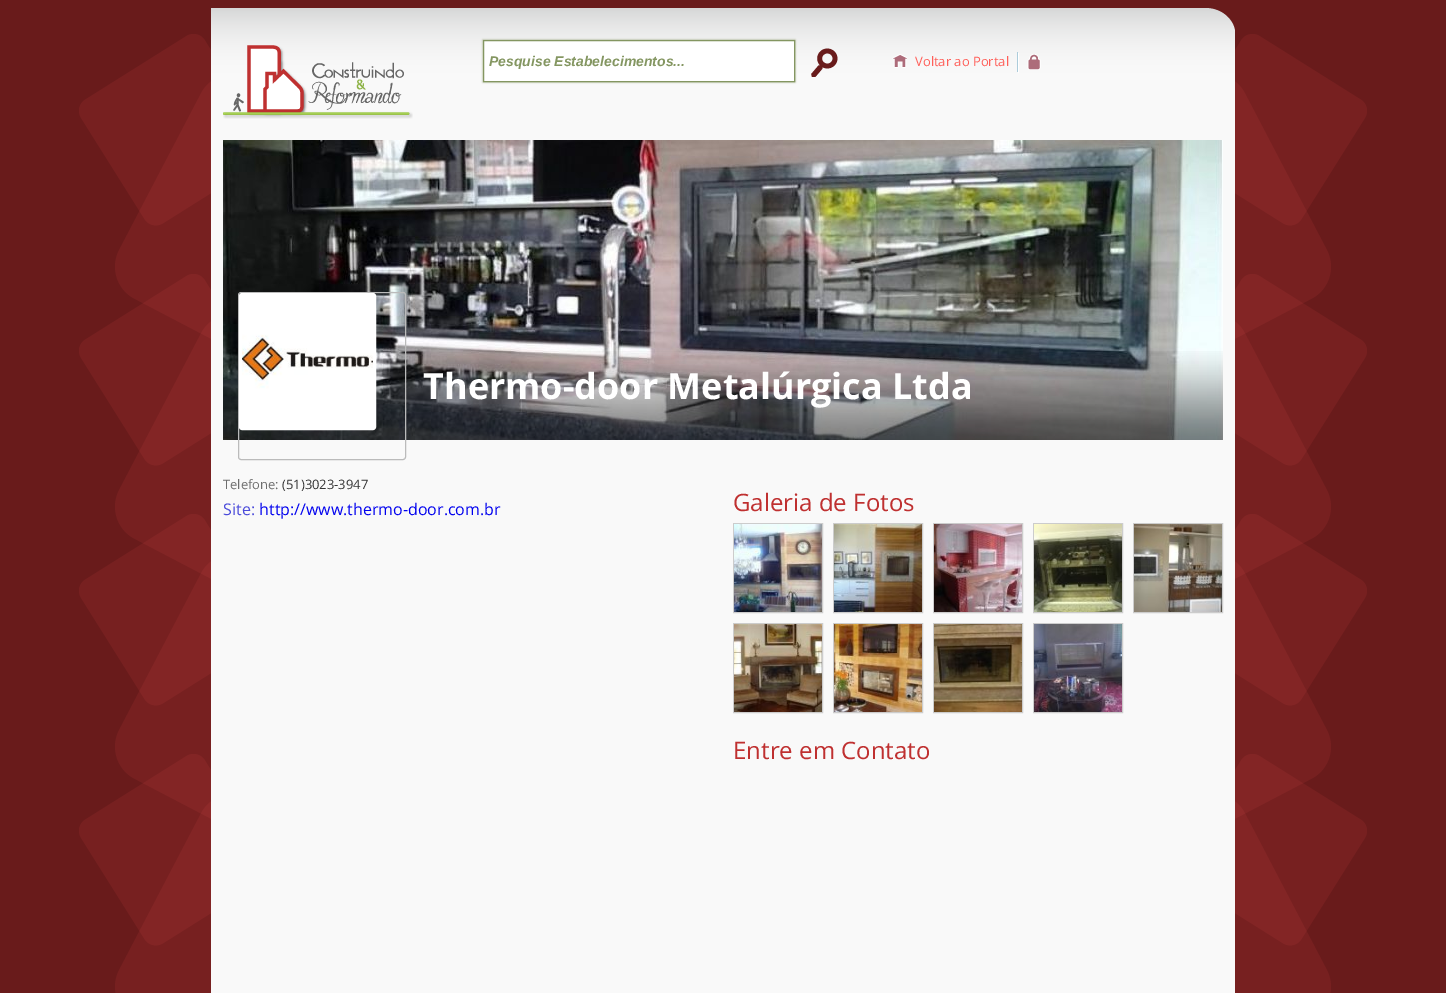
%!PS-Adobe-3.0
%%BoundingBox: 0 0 1446 993
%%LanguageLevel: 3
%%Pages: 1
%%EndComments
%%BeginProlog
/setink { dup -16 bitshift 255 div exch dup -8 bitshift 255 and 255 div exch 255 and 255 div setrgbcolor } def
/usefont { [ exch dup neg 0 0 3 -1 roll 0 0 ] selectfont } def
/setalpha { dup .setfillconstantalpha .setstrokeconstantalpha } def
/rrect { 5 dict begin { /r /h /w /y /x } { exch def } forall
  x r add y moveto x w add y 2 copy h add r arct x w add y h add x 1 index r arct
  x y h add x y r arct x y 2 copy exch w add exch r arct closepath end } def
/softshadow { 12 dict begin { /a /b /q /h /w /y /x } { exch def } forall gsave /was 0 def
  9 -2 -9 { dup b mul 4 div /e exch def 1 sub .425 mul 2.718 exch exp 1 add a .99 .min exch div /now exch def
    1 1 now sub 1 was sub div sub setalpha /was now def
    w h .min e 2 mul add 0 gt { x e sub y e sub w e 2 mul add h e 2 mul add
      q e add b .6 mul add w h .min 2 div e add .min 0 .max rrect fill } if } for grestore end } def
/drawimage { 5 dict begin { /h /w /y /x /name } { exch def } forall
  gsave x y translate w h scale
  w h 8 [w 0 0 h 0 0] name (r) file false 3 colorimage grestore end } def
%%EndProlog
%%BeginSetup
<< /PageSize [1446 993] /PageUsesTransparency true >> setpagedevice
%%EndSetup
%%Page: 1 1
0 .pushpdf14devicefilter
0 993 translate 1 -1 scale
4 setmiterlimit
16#691B1B setink
0 0 1446 993 rectfill
(img1.raw) 79 0 1288 993 drawimage
(img2.raw) 115 0 1216 99 drawimage
(img3.raw) 223 45 190 74 drawimage
16#849661 setink
483 40 312 42 0 1 1 softshadow
16#FFFFFF setink
483.5 40.5 moveto 794.5 40.5 lineto 794.5 81.5 lineto 483.5 81.5 lineto closepath gsave fill grestore
16#849661 setink
stroke
/LiberationSans-BoldItalic 14 usefont
489 66 moveto (Pesquise Estabelecimentos...) show
(img4.raw) 811 48 27 29 drawimage
(img5.raw) 892 54 15 14 drawimage
16#ACCCDB setink
1017 52 1 20 rectfill
/OpenSans-Regular 13 usefont
16#FF605A setink
915 66 moveto (Voltar ao Portal) show
(img6.raw) 1027 54 14 16 drawimage
16#FFFFFF setink
1018 53 1 20 rectfill
(img7.raw) 223 140 1000 300 drawimage
(img9.raw) 223 351 1000 89 drawimage
16#BBBBBB setink
238.5 292.5 167 167 2.5 rrect stroke
16#FFFFFF setink
3 setlinewidth
240.5 294.5 134 134 1.5 rrect stroke
(img8.raw) 242 296 131 131 drawimage
/OpenSans-Bold 36 usefont
423 399 moveto (Thermo-door Metalúrgica Ltda) show
/OpenSans-Regular 13 usefont
16#6E6E6E setink
223 489 moveto (Telefone:) show
16#333333 setink
282 489 moveto (\(51\)3023-3947) show
/OpenSans-Regular 16 usefont
16#4B4BDA setink
223 515 moveto (Site:) show
16#0000EE setink
259 515 moveto (http://www.thermo-door.com.br) show
/OpenSans-Regular 24 usefont
16#BF3030 setink
733 511 moveto (Galeria de Fotos) show
16#CCCCCC setink
1 setlinewidth
733.5 523.5 89 89 rectstroke
(img10.raw) 734 524 88 88 drawimage
833.5 523.5 89 89 rectstroke
(img11.raw) 834 524 88 88 drawimage
933.5 523.5 89 89 rectstroke
(img12.raw) 934 524 88 88 drawimage
1033.5 523.5 89 89 rectstroke
(img13.raw) 1034 524 88 88 drawimage
1133.5 523.5 89 89 rectstroke
(img14.raw) 1134 524 88 88 drawimage
733.5 623.5 89 89 rectstroke
(img15.raw) 734 624 88 88 drawimage
833.5 623.5 89 89 rectstroke
(img16.raw) 834 624 88 88 drawimage
933.5 623.5 89 89 rectstroke
(img17.raw) 934 624 88 88 drawimage
1033.5 623.5 89 89 rectstroke
(img18.raw) 1034 624 88 88 drawimage
16#BF3030 setink
733 759 moveto (Entre em Contato) show
.poppdf14devicefilter showpage
%%EOF
